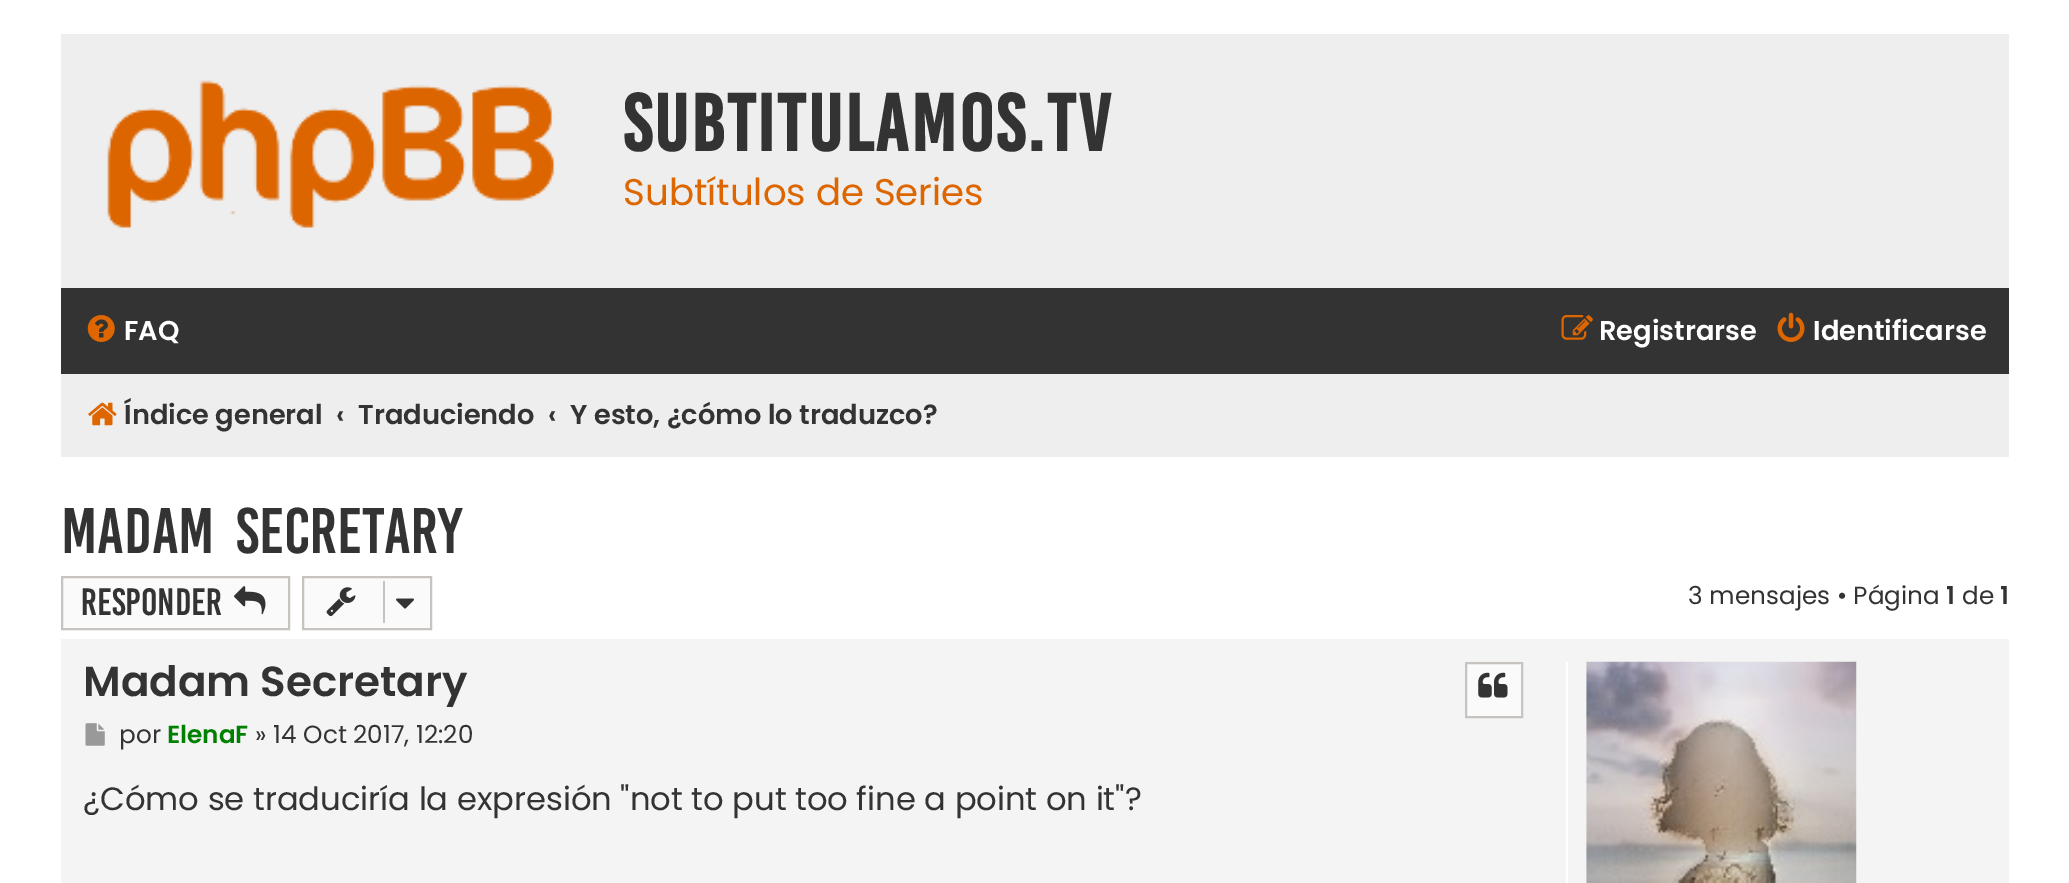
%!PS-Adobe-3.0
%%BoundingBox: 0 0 2069 883
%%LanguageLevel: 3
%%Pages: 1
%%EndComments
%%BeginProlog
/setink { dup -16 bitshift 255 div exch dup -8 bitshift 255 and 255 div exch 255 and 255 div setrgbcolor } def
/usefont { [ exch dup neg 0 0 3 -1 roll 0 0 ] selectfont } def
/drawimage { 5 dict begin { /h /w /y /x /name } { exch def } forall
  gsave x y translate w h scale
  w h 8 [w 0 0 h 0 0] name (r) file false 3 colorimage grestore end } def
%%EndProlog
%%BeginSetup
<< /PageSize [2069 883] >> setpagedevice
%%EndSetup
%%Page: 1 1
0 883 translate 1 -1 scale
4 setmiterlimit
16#FFFFFF setink
0 0 2069 883 rectfill
16#EEEEEE setink
61 34 1948 254 rectfill
(img1.raw) 107 80 448 148 drawimage
/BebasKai-Bold 62 usefont
16#333333 setink
623 151 moveto 2.25 0 (subtitulamos.tv) ashow
/Poppins-Regular 37.1 usefont
16#DD6600 setink
623 205 moveto (Subtítulos de Series) show
16#333333 setink
61 288 1948 86 rectfill
(img2.raw) 87 315 28 27 drawimage
/Poppins-SemiBold 27.25 usefont
16#FFFFFF setink
124 340 moveto (FAQ) show
(img3.raw) 1561 315 32 25 drawimage
1599 340 moveto (Registrarse) show
(img4.raw) 1777 312 28 30 drawimage
1813 340 moveto (Identificarse) show
16#EEEEEE setink
61 374 1948 83 rectfill
(img5.raw) 88 402 29 24 drawimage
16#333333 setink
[
    [(Índice general) 124 424]
    [(‹) 336 424]
    [(Traduciendo) 358 424]
    [(‹) 548 424]
    [(Y esto, ¿cómo lo traduzco?) 570 424]
] { aload pop moveto show } forall
/BebasKai-Regular 49.5 usefont
61 553 moveto 9 0 32 (Madam Secretary) widthshow
16#FAFAFA setink
62 577 moveto 289 577 lineto 289 629 lineto 62 629 lineto closepath gsave fill grestore
16#C7C3BF setink
2 setlinewidth
stroke
/BebasKai-Regular 29.25 usefont
16#333333 setink
81 615 moveto (Responder) show
(img6.raw) 234 586 32 29 drawimage
16#FAFAFA setink
303 577 moveto 431 577 lineto 431 629 lineto 303 629 lineto closepath gsave fill grestore
16#C7C3BF setink
stroke
(img7.raw) 326 587 30 30 drawimage
383 581 2 42 rectfill
(img8.raw) 396 598 18 11 drawimage
/Poppins-Regular 24.75 usefont
16#333333 setink
1688 604 moveto (3 mensajes • Página) show
/Poppins-SemiBold 24.75 usefont
1946 604 moveto (1) show
/Poppins-Regular 24.75 usefont
1962 604 moveto (de) show
/Poppins-SemiBold 24.75 usefont
2000 604 moveto (1) show
16#F4F4F4 setink
61 639 1948 244 rectfill
/Poppins-SemiBold 42 usefont
16#333333 setink
83 696 moveto (Madam Secretary) show
16#FAFAFA setink
1466 663 moveto 1522 663 lineto 1522 717 lineto 1466 717 lineto closepath gsave fill grestore
16#C7C3BF setink
stroke
(img9.raw) 1478 672 30 26 drawimage
(img10.raw) 85 723 20 23 drawimage
/Poppins-Regular 24.75 usefont
16#333333 setink
119 743 moveto (por) show
/Poppins-SemiBold 24.75 usefont
16#008000 setink
167 743 moveto (ElenaF) show
/Poppins-Regular 24.75 usefont
16#333333 setink
255 743 moveto (» 14 Oct 2017, 12:20) show
/Poppins-Regular 32.2 usefont
83 810 moveto (¿Cómo se traduciría la expresión "not to put too fine a point on it"?) show
16#FFFFFF setink
1566 662 2 221 rectfill
(img11.raw) 1586 661 271 222 drawimage
showpage
%%EOF
